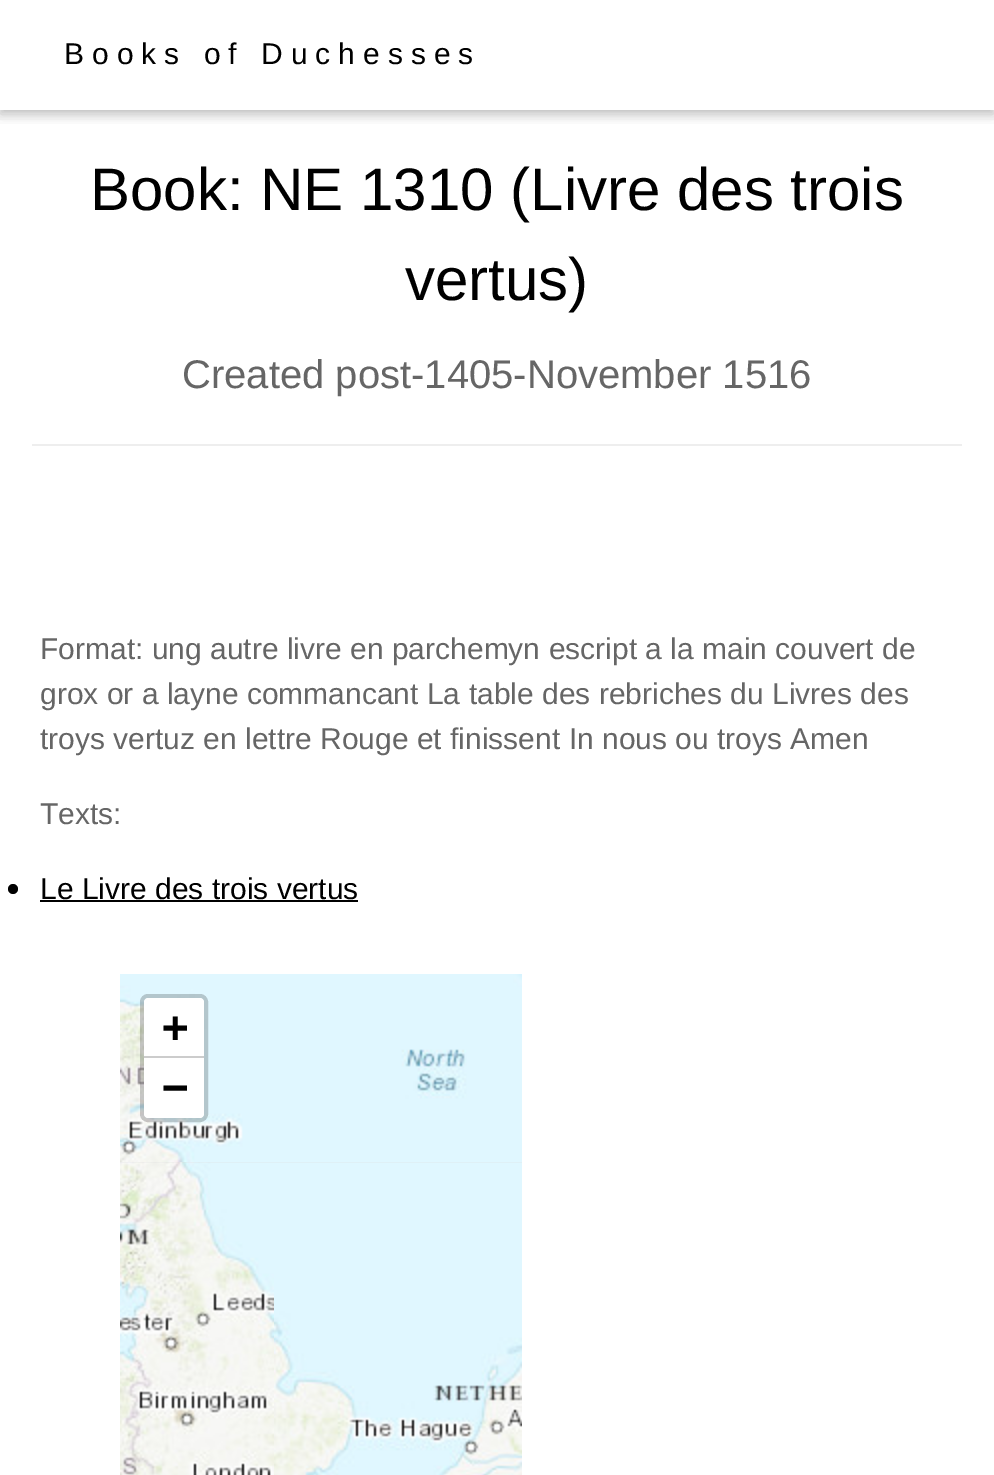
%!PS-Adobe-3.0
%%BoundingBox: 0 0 994 1475
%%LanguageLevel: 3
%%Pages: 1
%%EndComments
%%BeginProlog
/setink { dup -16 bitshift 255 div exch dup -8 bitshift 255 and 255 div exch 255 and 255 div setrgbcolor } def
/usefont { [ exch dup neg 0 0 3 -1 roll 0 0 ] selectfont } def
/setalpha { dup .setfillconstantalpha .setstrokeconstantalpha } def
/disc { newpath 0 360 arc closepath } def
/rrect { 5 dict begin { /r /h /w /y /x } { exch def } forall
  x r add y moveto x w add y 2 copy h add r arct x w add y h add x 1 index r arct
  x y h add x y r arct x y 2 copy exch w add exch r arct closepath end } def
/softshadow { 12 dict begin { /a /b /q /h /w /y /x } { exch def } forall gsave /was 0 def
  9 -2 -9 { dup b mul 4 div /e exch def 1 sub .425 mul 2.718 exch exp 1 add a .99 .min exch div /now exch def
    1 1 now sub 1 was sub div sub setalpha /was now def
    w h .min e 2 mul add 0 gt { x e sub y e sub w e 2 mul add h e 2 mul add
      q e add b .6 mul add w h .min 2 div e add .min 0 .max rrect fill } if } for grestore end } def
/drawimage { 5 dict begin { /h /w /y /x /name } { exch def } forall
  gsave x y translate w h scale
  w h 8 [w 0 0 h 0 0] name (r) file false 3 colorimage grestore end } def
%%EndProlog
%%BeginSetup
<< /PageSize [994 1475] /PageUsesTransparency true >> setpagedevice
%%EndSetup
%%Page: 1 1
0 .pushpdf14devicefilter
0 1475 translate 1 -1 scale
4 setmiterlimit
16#FFFFFF setink
0 0 994 1475 rectfill
gsave
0 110 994 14 rectclip
16#000000 setink
0 4 994 110 0 10 0.12 softshadow
grestore
gsave
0 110 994 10 rectclip
16#000000 setink
0 4 994 110 0 5 0.16 softshadow
grestore
/LiberationSans-Regular 30 usefont
16#000000 setink
64 64 moveto 8 0 (Books of Duchesses) ashow
/LiberationSans-Regular 60 usefont
90 210 moveto (Book: NE 1310 \(Livre des trois) show
405 300 moveto (vertus\)) show
/LiberationSans-Regular 40 usefont
16#666666 setink
182 388 moveto (Created post-1405-November 1516) show
16#EEEEEE setink
32 444 930 2 rectfill
/LiberationSans-Regular 30 usefont
16#666666 setink
[
    [(Format: ung autre livre en parchemyn escript a la main couvert de) 40 659]
    [(grox or a layne commancant La table des rebriches du Livres des) 40 704]
    [(troys vertuz en lettre Rouge et finissent In nous ou troys Amen) 40 749]
    [(Texts:) 40 824]
] { aload pop moveto show } forall
16#000000 setink
13 889 5 disc fill
40 899 moveto (Le Livre des trois vertus) show
40 900 318 2 rectfill
(img1.raw) 120 974 154 188 drawimage
(img2.raw) 274 974 248 188 drawimage
(img3.raw) 120 1162 154 313 drawimage
(img4.raw) 274 1162 248 313 drawimage
0.2 setalpha
4 setlinewidth
142 996 64 124 6 rrect stroke
1 setalpha
16#FFFFFF setink
148 998 moveto 200 998 lineto 202 998 204 1000 204 1002 curveto 204 1058 lineto 144 1058 lineto 144 1002 lineto 144 1000 146 998 148 998 curveto closepath fill
16#CCCCCC setink
144 1056 60 2 rectfill
/DejaVuSansMono-Bold 44 usefont
16#000000 setink
162 1042 moveto (+) show
16#FFFFFF setink
144 1058 moveto 204 1058 lineto 204 1114 lineto 204 1116 202 1118 200 1118 curveto 148 1118 lineto 146 1118 144 1116 144 1114 curveto closepath fill
16#000000 setink
162 1102 moveto (−) show
.poppdf14devicefilter showpage
%%EOF
